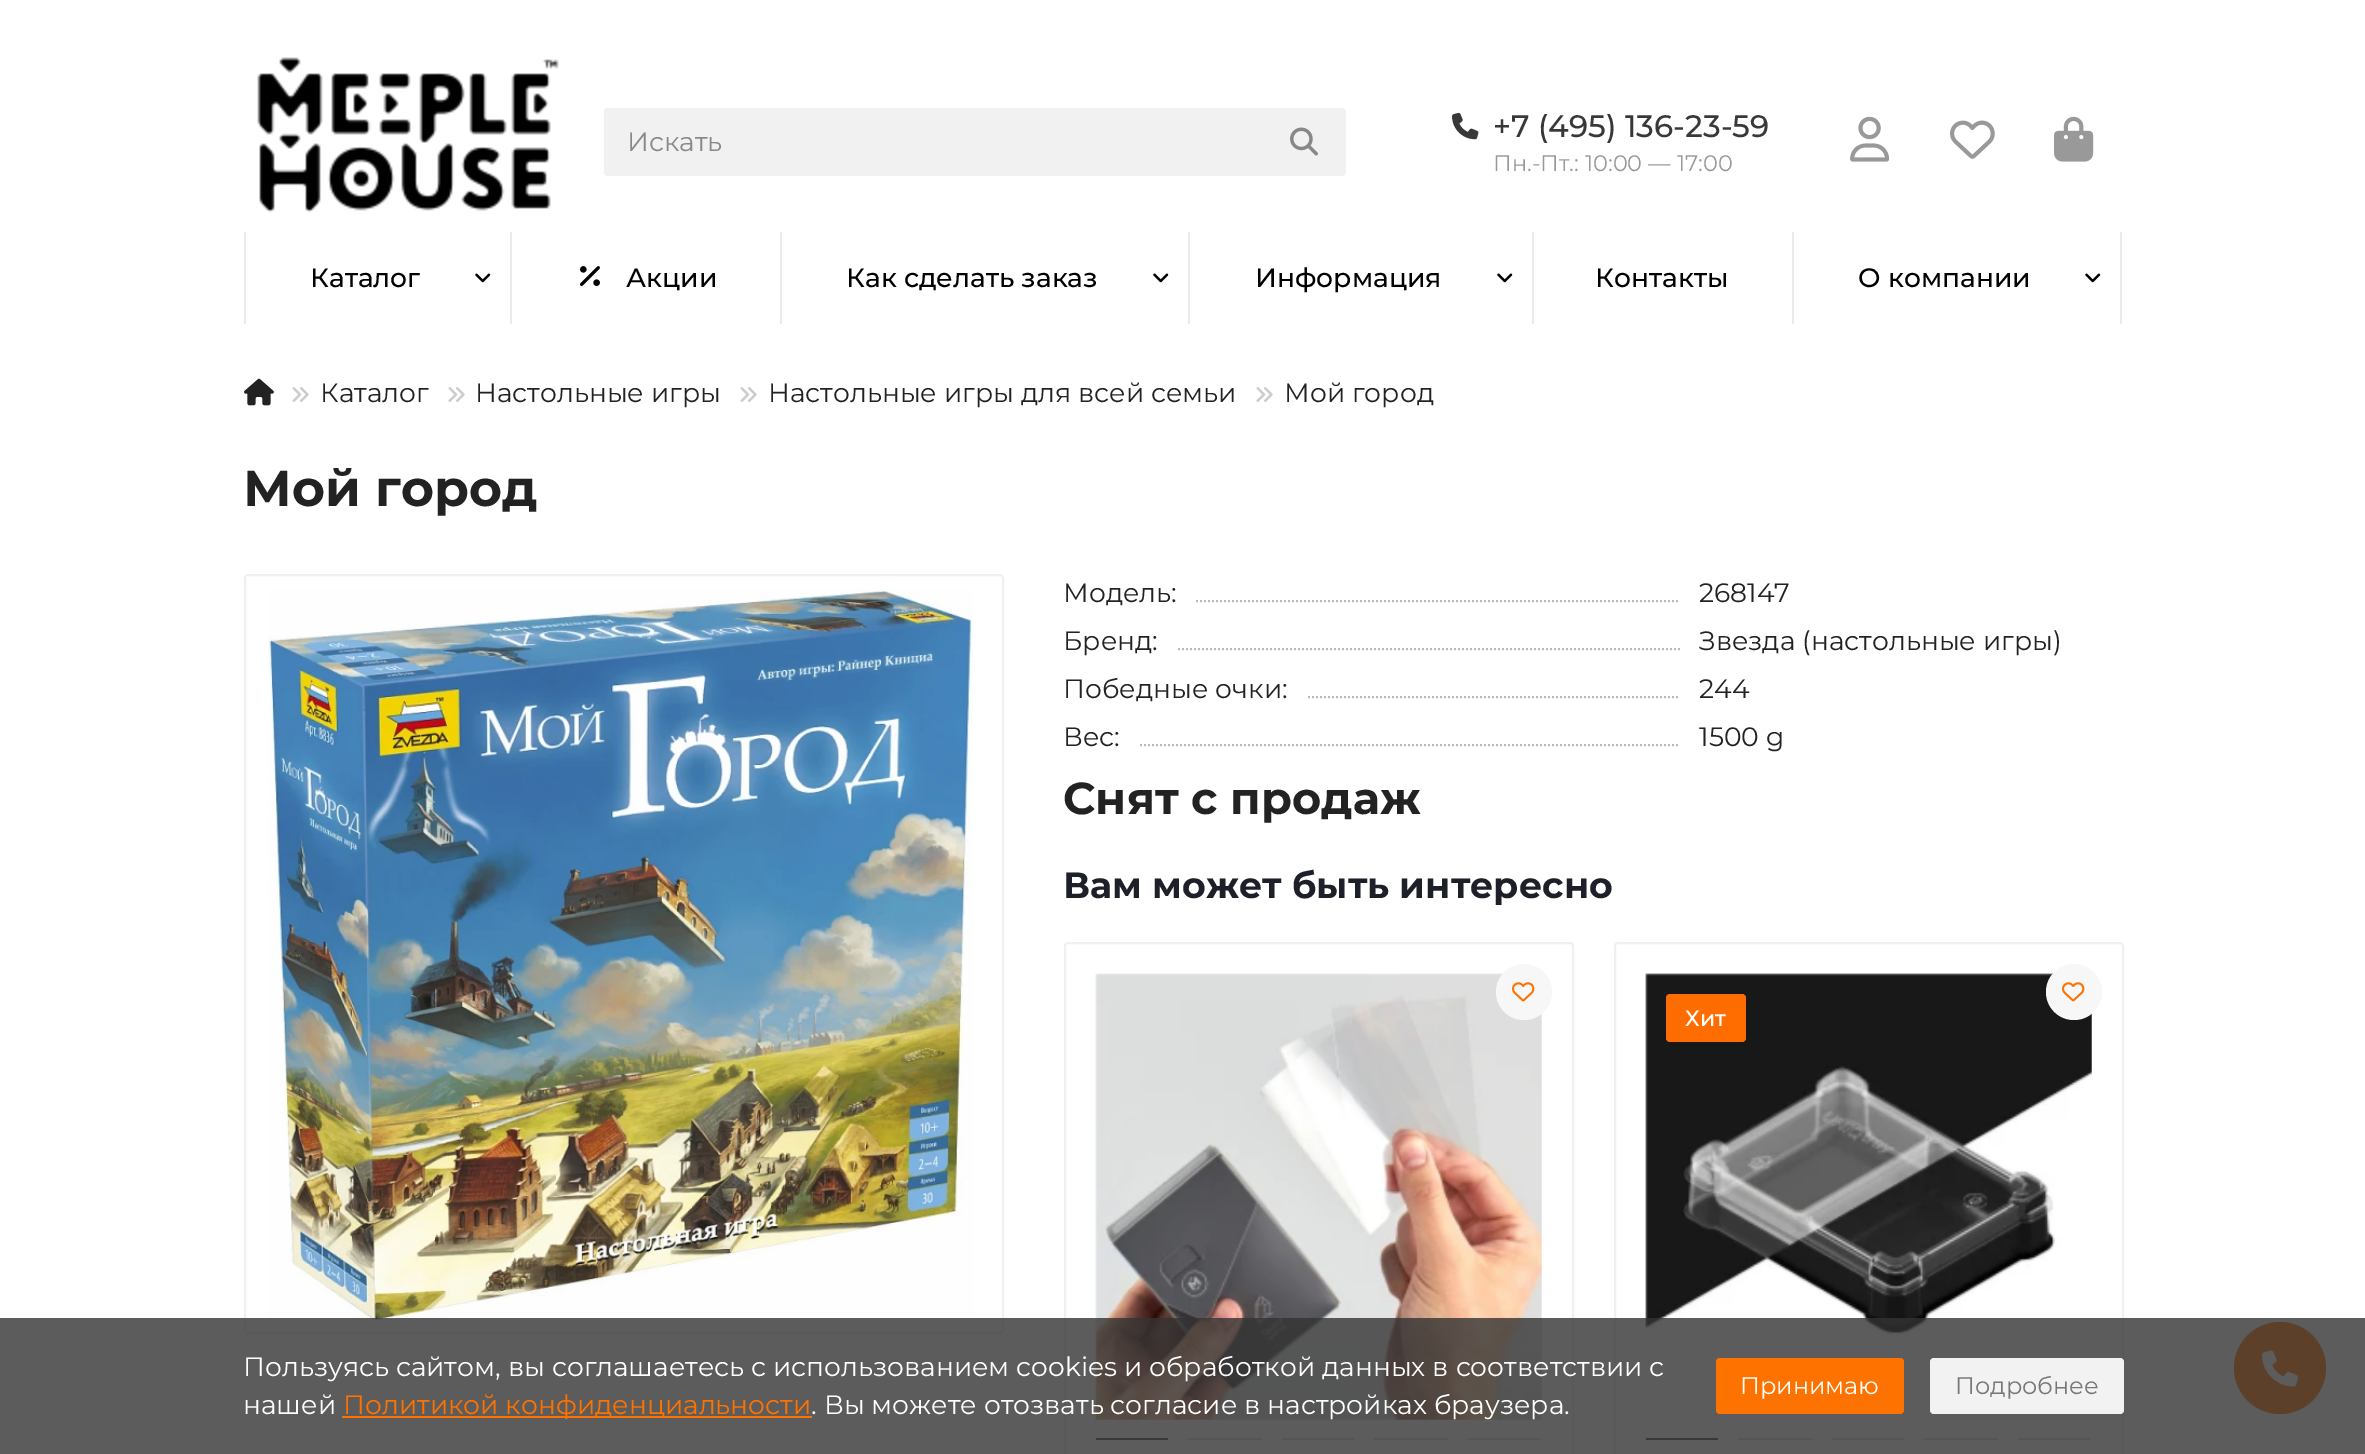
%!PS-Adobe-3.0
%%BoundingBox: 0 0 2365 1454
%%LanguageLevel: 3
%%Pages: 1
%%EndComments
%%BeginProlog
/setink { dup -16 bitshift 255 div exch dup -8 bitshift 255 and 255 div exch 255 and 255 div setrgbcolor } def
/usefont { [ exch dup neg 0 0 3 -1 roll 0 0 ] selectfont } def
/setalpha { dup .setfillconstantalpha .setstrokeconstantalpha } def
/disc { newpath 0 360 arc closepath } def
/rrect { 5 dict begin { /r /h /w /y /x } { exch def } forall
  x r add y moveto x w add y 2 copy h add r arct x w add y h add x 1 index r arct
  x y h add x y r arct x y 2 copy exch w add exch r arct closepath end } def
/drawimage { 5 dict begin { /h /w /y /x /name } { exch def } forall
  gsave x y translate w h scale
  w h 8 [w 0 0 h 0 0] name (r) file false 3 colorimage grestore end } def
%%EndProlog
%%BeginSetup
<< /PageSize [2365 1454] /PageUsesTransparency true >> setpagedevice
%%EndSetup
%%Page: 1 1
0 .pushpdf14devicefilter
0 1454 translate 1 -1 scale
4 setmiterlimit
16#FFFFFF setink
0 0 2365 1454 rectfill
(img1.raw) 257 57 302 156 drawimage
16#F1F1F1 setink
604 108 742 68 4 rrect fill
/Montserrat-Regular 26.6 usefont
16#888888 setink
627 151 moveto (Искать) show
(img2.raw) 1290 127 28 29 drawimage
(img3.raw) 1452 112 27 28 drawimage
/Montserrat-Medium 31 usefont
16#383838 setink
1493 137 moveto (+7 \(495\) 136-23-59) show
/Montserrat-Regular 22.5 usefont
16#999999 setink
1493 171 moveto (Пн.-Пт.: 10:00 — 17:00) show
(img4.raw) 1850 116 40 46 drawimage
(img5.raw) 1950 120 45 39 drawimage
(img6.raw) 2054 116 40 46 drawimage
16#EBEBEB setink
244 232 2 92 rectfill
/Montserrat-Medium 26.6 usefont
16#000000 setink
310 287 moveto (Каталог) show
(img7.raw) 475 273 16 10 drawimage
16#EBEBEB setink
510 232 2 92 rectfill
(img8.raw) 580 266 20 20 drawimage
16#000000 setink
626 287 moveto (Акции) show
16#EBEBEB setink
780 232 2 92 rectfill
16#000000 setink
846 287 moveto (Как сделать заказ) show
(img7.raw) 1153 273 16 10 drawimage
16#EBEBEB setink
1188 232 2 92 rectfill
16#000000 setink
1255 287 moveto (Информация) show
(img7.raw) 1497 273 16 10 drawimage
16#EBEBEB setink
1532 232 2 92 rectfill
16#000000 setink
1595 287 moveto (Контакты) show
16#EBEBEB setink
1792 232 2 92 rectfill
2120 232 2 92 rectfill
16#000000 setink
1858 287 moveto (О компании) show
(img7.raw) 2085 273 16 10 drawimage
(img9.raw) 244 378 30 28 drawimage
(img10.raw) 292 387 17 15 drawimage
/Montserrat-Regular 26.6 usefont
16#222222 setink
320 402 moveto (Каталог) show
(img10.raw) 448 387 17 15 drawimage
475 402 moveto (Настольные игры) show
(img10.raw) 740 387 17 15 drawimage
768 402 moveto (Настольные игры для всей семьи) show
(img10.raw) 1256 387 17 15 drawimage
1284 402 moveto (Мой город) show
/Montserrat-Bold 50.5 usefont
243 506 moveto (Мой город) show
16#F0F0F0 setink
2 setlinewidth
245 575 758 758 3 rrect stroke
(img11.raw) 268 589 705 733 drawimage
/Montserrat-Regular 26.6 usefont
16#222222 setink
1063 602 moveto (Модель:) show
16#BBBBBB setink
[2 2] 0 setdash
1196 601 moveto 1680 601 lineto stroke
16#222222 setink
1699 602 moveto (268147) show
1063 650 moveto (Бренд:) show
16#BBBBBB setink
1178 649 moveto 1680 649 lineto stroke
16#222222 setink
1699 650 moveto (Звезда \(настольные игры\)) show
1063 698 moveto (Победные очки:) show
16#BBBBBB setink
1308 697 moveto 1680 697 lineto stroke
16#222222 setink
1699 698 moveto (244) show
1063 746 moveto (Вес:) show
16#BBBBBB setink
1140 745 moveto 1680 745 lineto stroke
16#222222 setink
1699 746 moveto (1500 g) show
/Montserrat-Bold 44.75 usefont
1063 814 moveto (Снят с продаж) show
/Montserrat-Bold 36.4 usefont
16#1D2029 setink
1063 898 moveto (Вам может быть интересно) show
16#F0F0F0 setink
[] 0 setdash
1065 943 508 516 3 rrect stroke
(img13.raw) 1095 973 447 447 drawimage
16#F7F7F7 setink
1524 992 28 disc fill
(img12.raw) 1512 982 23 20 drawimage
[
    [1096 1438 72 2 16#4E4E4E]
    [1188 1438 74 2 16#DDDDDD]
    [1282 1438 72 2 16#DDDDDD]
    [1374 1438 74 2 16#DDDDDD]
    [1468 1438 72 2 16#DDDDDD]
] { aload pop setink rectfill } forall
16#F0F0F0 setink
1615 943 508 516 3 rrect stroke
(img14.raw) 1645 973 447 364 drawimage
[
    [1646 1438 72 2 16#4E4E4E]
    [1738 1438 74 2 16#DDDDDD]
    [1832 1438 72 2 16#DDDDDD]
    [1924 1438 74 2 16#DDDDDD]
    [2018 1438 72 2 16#DDDDDD]
] { aload pop setink rectfill } forall
16#FF6D00 setink
1666 994 80 48 4 rrect fill
/Montserrat-Medium 22 usefont
16#FFFFFF setink
1685 1026 moveto (Хит) show
16#F7F7F7 setink
2074 992 28 disc fill
(img12.raw) 2062 982 23 20 drawimage
16#FE7200 setink
2280 1368 46 disc fill
(img15.raw) 2262 1350 36 37 drawimage
0.8 setalpha
16#333333 setink
0 1318 2365 136 rectfill
/Montserrat-Regular 26.6 usefont
1 setalpha
16#FFFFFF setink
243 1376 moveto (Пользуясь сайтом, вы соглашаетесь с использованием cookies и обработкой данных в соответствии с) show
243 1414 moveto (нашей) show
16#FE7200 setink
342 1416 470 2 rectfill
343 1414 moveto (Политикой конфиденциальности) show
16#FFFFFF setink
811 1414 moveto (. Вы можете отозвать согласие в настройках браузера.) show
16#FE7200 setink
1716 1358 188 56 4 rrect fill
/Montserrat-Regular 24 usefont
16#FFFFFF setink
1740 1394 moveto (Принимаю) show
16#F2F2F2 setink
1930 1358 194 56 4 rrect fill
16#777777 setink
1955 1394 moveto (Подробнее) show
.poppdf14devicefilter showpage
%%EOF
